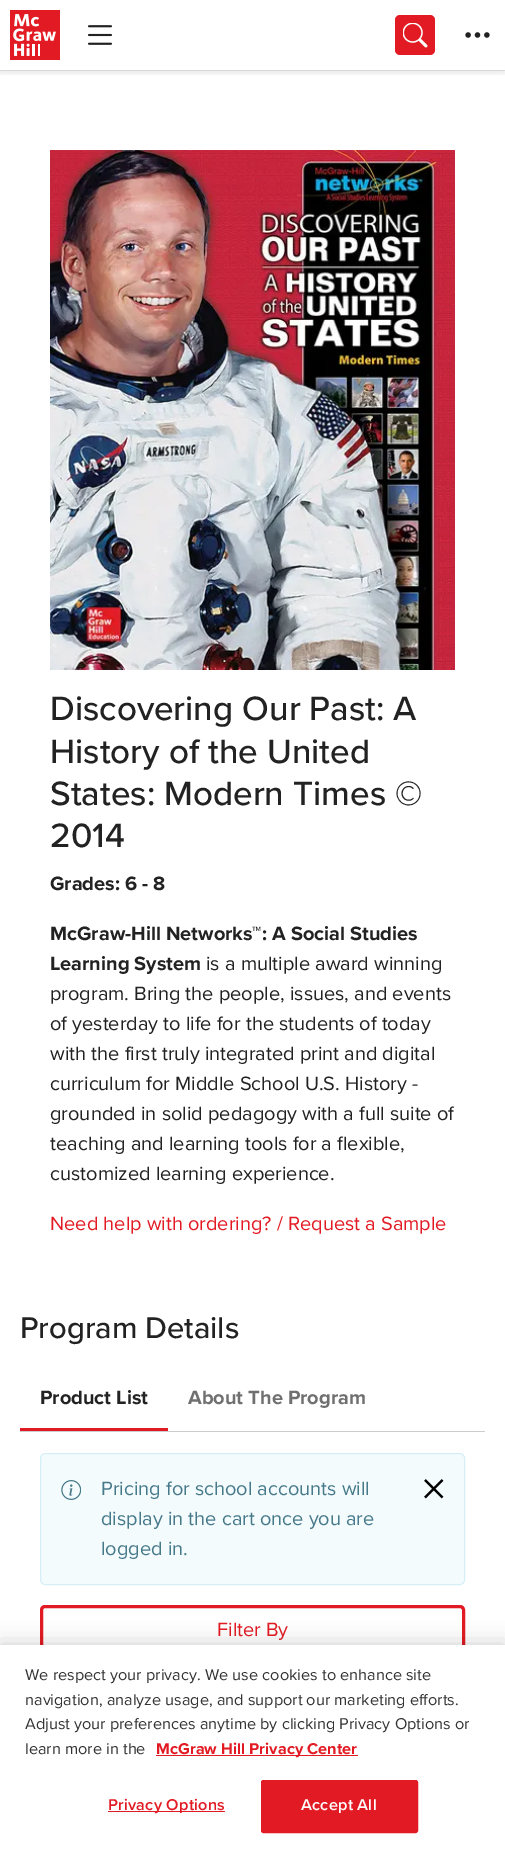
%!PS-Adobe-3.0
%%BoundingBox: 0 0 505 1851
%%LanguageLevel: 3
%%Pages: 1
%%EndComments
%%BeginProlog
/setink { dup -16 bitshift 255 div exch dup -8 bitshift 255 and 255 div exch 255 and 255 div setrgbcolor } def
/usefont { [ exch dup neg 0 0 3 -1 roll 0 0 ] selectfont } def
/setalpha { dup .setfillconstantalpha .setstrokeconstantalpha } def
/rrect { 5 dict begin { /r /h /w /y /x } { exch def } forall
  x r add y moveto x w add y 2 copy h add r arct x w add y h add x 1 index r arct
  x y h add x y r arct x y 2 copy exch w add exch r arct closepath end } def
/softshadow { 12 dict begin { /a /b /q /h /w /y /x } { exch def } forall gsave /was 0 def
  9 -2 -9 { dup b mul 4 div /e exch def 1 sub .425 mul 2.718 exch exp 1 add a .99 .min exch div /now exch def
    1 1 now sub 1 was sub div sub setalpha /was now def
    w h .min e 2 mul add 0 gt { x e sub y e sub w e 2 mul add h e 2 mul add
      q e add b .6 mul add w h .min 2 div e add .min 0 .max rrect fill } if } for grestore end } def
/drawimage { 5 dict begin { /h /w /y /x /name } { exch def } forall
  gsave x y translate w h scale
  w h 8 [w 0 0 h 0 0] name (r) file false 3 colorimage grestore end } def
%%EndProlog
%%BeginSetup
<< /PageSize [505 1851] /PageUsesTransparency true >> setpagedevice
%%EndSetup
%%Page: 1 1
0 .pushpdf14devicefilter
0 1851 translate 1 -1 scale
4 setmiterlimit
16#FFFFFF setink
0 0 505 1851 rectfill
gsave
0 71 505 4 rectclip
16#000000 setink
0 3 505 71 0 2.5 0.07 softshadow
grestore
16#D9D9D9 setink
0 70 505 1 rectfill
(img1.raw) 10 10 50 50 drawimage
(img2.raw) 88 25 24 20 drawimage
16#E21A23 setink
395 15 40 40 5 rrect fill
(img3.raw) 403 23 25 25 drawimage
(img4.raw) 465 32 25 6 drawimage
(img5.raw) 50 150 405 520 drawimage
/ProximaNova-Medium 35 usefont
16#222222 setink
[
    [(Discovering Our Past: A) 50 720]
    [(History of the United) 50 763]
    [(States: Modern Times ©) 50 805]
    [(2014) 50 847]
] { aload pop moveto show } forall
/ProximaNova-Bold 20 usefont
[
    [(Grades: 6 - 8) 50 890]
    [(McGraw-Hill Networks™: A Social Studies) 50 940]
    [(Learning System) 50 970]
] { aload pop moveto show } forall
/ProximaNova-Regular 20 usefont
[
    [(is a multiple award winning) 206 970]
    [(program. Bring the people, issues, and events) 50 1000]
    [(of yesterday to life for the students of today) 50 1030]
    [(with the first truly integrated print and digital) 50 1060]
    [(curriculum for Middle School U.S. History -) 50 1090]
    [(grounded in solid pedagogy with a full suite of) 50 1120]
    [(teaching and learning tools for a flexible,) 50 1150]
    [(customized learning experience.) 50 1180]
] { aload pop moveto show } forall
16#E21A23 setink
50 1230 moveto (Need help with ordering? / Request a Sample) show
/ProximaNova-Medium 31 usefont
16#222222 setink
20 1338 moveto (Program Details) show
16#CCCCCC setink
20 1431 465 1 rectfill
/ProximaNova-Bold 20 usefont
16#222222 setink
40 1404 moveto (Product List) show
16#E21A23 setink
20 1428 148 3 rectfill
16#707070 setink
188 1404 moveto (About The Program) show
16#F4FBFD setink
40.5 1453.5 424 131 4.5 rrect gsave fill grestore
16#D6EFF7 setink
stroke
(img6.raw) 61 1480 20 20 drawimage
/ProximaNova-Regular 20 usefont
16#467989 setink
[
    [(Pricing for school accounts will) 101 1495]
    [(display in the cart once you are) 101 1525]
    [(logged in.) 101 1555]
] { aload pop moveto show } forall
(img7.raw) 424 1479 20 20 drawimage
16#E21A23 setink
3 setlinewidth
41.5 1606.5 422 47 3.5 rrect stroke
217 1636 moveto (Filter By) show
16#000000 setink
0 1645 505 206 0 11 0.2 softshadow
16#FFFFFF setink
0 1645 505 206 rectfill
/ProximaNova-Regular 16.25 usefont
16#333333 setink
[
    [(We respect your privacy. We use cookies to enhance site) 25 1680]
    [(navigation, analyze usage, and support our marketing efforts.) 25 1705]
    [(Adjust your preferences anytime by clicking Privacy Options or) 25 1729]
    [(learn more in the) 25 1754]
] { aload pop moveto show } forall
16#E21A23 setink
156 1755 202 1 rectfill
/ProximaNova-Bold 16.25 usefont
156 1754 moveto (McGraw Hill Privacy Center) show
108 1811 117 1 rectfill
/ProximaNova-SemiBold 16.25 usefont
108 1810 moveto 0.2 0 (Privacy Options) ashow
261.5 1780.5 156 52 2 rrect gsave fill grestore
1 setlinewidth
stroke
16#FFFFFF setink
301 1810 moveto 0.2 0 (Accept All) ashow
.poppdf14devicefilter showpage
%%EOF
